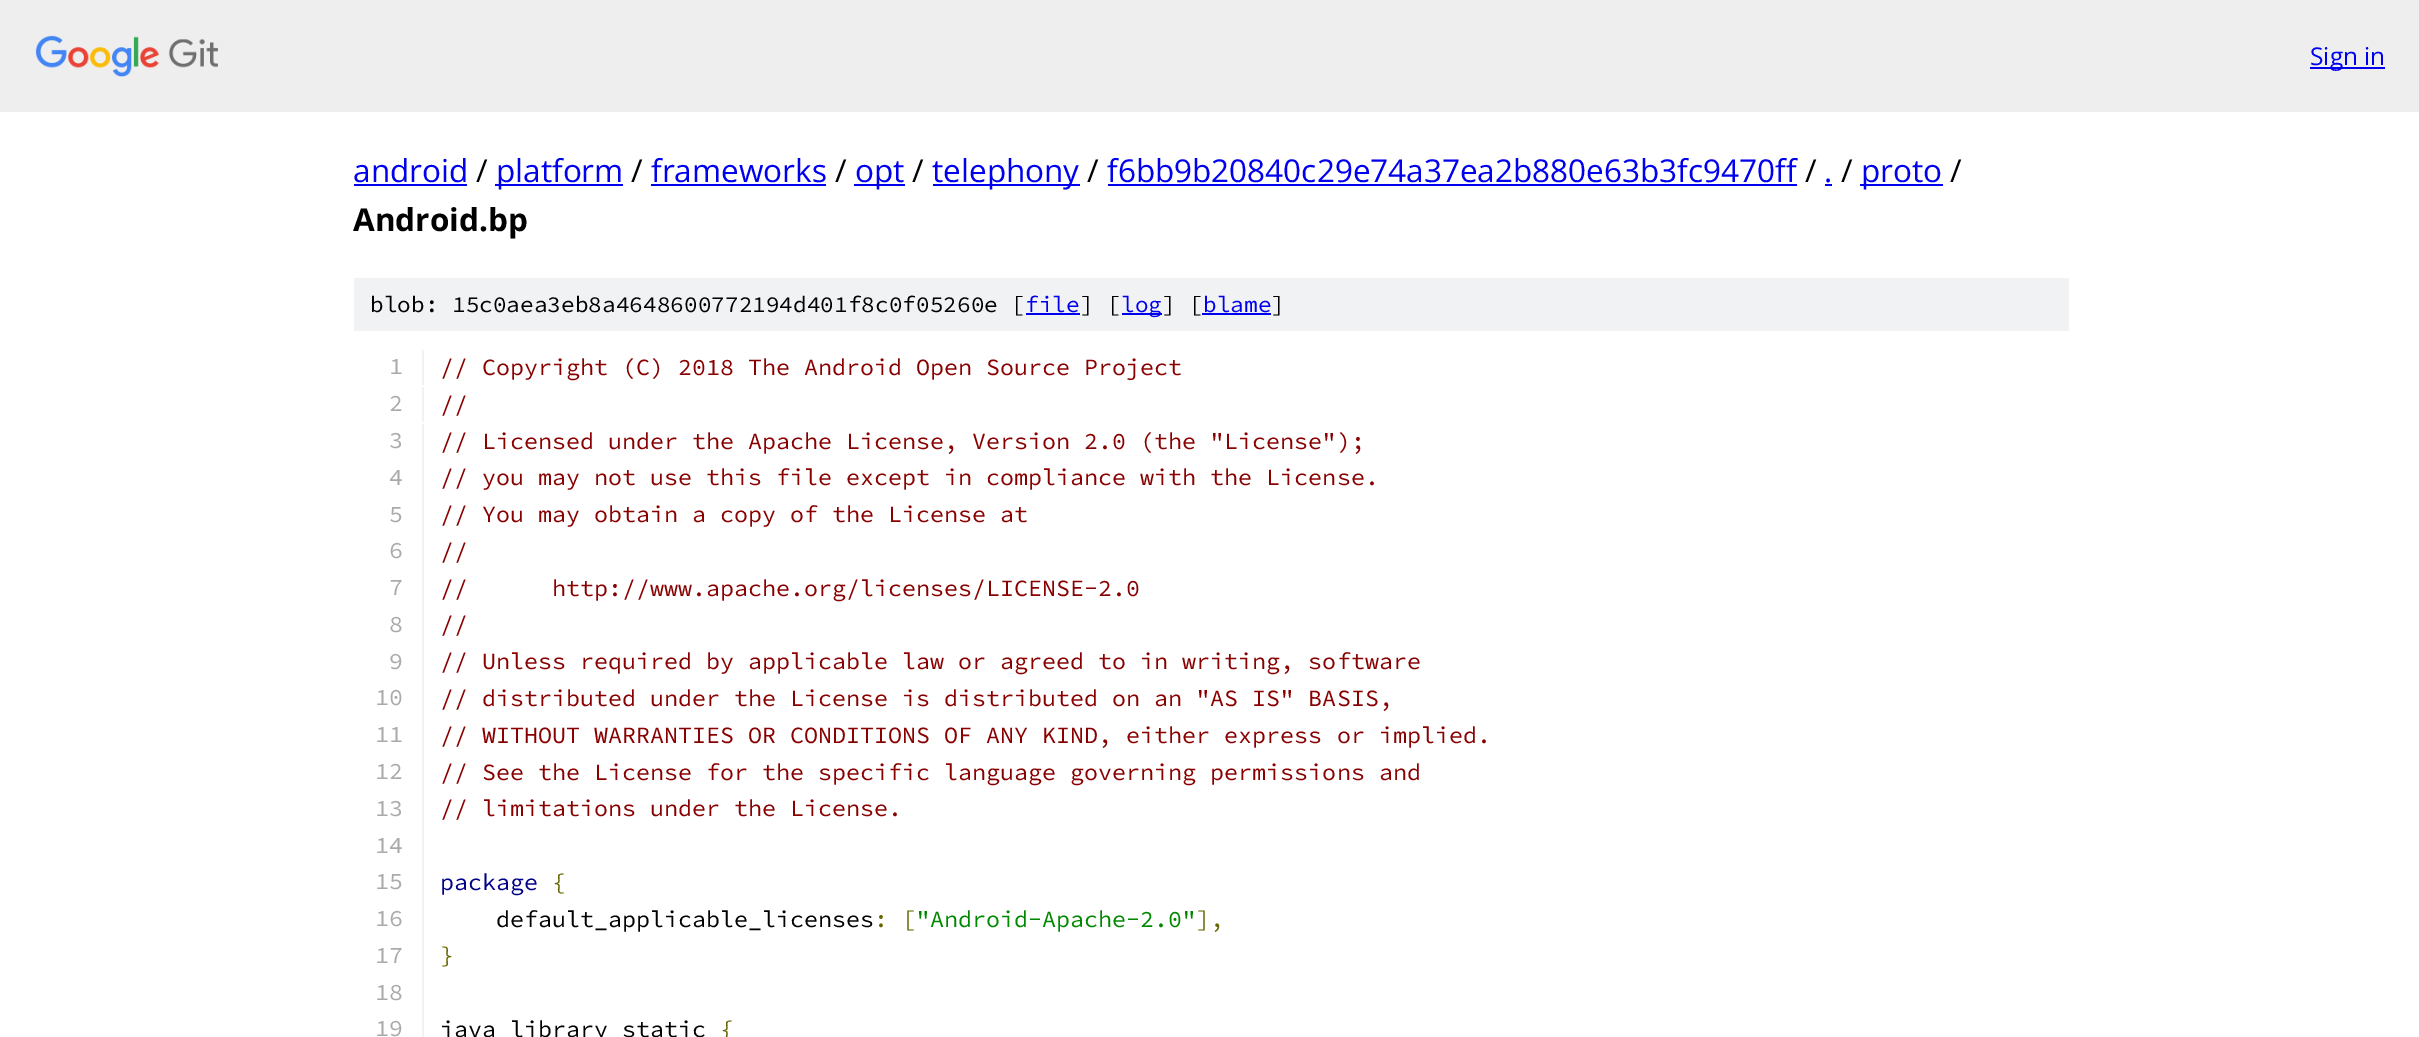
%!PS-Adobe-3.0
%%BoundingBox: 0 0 2419 1037
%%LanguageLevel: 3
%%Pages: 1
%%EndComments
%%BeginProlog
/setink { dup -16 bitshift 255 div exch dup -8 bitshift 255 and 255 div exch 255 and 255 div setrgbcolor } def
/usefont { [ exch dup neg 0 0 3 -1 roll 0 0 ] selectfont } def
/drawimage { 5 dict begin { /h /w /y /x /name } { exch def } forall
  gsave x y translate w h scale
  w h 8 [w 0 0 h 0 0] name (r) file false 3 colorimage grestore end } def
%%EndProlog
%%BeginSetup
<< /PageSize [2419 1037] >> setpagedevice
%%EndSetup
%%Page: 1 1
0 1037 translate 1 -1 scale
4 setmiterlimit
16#FFFFFF setink
0 0 2419 1037 rectfill
16#EEEEEE setink
0 0 2419 112 rectfill
(img1.raw) 35 35 183 42 drawimage
16#0000EE setink
2310 67 75 2 rectfill
/OpenSans-Regular 24.5 usefont
2310 65 moveto (Sign in) show
/OpenSans-Regular 31.5 usefont
353 182 moveto (android) show
354 184 113 2 rectfill
16#000000 setink
476 182 moveto (/) show
16#0000EE setink
495 184 128 2 rectfill
496 182 moveto (platform) show
16#000000 setink
631 182 moveto (/) show
16#0000EE setink
651 182 moveto (frameworks) show
651 184 175 2 rectfill
16#000000 setink
835 182 moveto (/) show
16#0000EE setink
854 184 51 2 rectfill
855 182 moveto (opt) show
16#000000 setink
912 182 moveto (/) show
16#0000EE setink
933 184 147 2 rectfill
932 182 moveto (telephony) show
16#000000 setink
1087 182 moveto (/) show
16#0000EE setink
1107 182 moveto (f6bb9b20840c29e74a37ea2b880e63b3fc9470ff) show
1108 184 689 2 rectfill
16#000000 setink
1805 182 moveto (/) show
16#0000EE setink
1824 182 moveto (.) show
1825 184 7 2 rectfill
16#000000 setink
1841 182 moveto (/) show
16#0000EE setink
1860 184 83 2 rectfill
1861 182 moveto (proto) show
16#000000 setink
1950 182 moveto (/) show
/OpenSans-Bold 31.5 usefont
353 231 moveto (Android.bp) show
16#F1F2F3 setink
354 278 1715 53 rectfill
/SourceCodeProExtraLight-ExtraLight 22.75 usefont
16#000000 setink
370 312 moveto (blob: 15c0aea3eb8a4648600772194d401f8c0f05260e [) show
16#0000EE setink
1025 312 moveto (file) show
1026 313 54 2 rectfill
16#000000 setink
1080 312 moveto (] [) show
16#0000EE setink
1122 313 40 2 rectfill
1121 312 moveto (log) show
16#000000 setink
1162 312 moveto (] [) show
16#0000EE setink
1203 312 moveto (blame) show
1202 313 69 2 rectfill
16#000000 setink
1271 312 moveto (]) show
16#F1F2F3 setink
422 350 2 35 rectfill
/SourceCodeProExtraLight-ExtraLight 23.35 usefont
16#AAAAAA setink
389 374 moveto (1) show
16#880000 setink
440 375 moveto (// Copyright \(C\) 2018 The Android Open Source Project) show
16#F1F2F3 setink
422 387 2 35 rectfill
16#AAAAAA setink
389 411 moveto (2) show
16#880000 setink
440 412 moveto (//) show
16#F1F2F3 setink
422 424 2 613 rectfill
16#AAAAAA setink
389 448 moveto (3) show
16#880000 setink
440 449 moveto (// Licensed under the Apache License, Version 2.0 \(the "License"\);) show
16#AAAAAA setink
389 485 moveto (4) show
16#880000 setink
440 485 moveto (// you may not use this file except in compliance with the License.) show
16#AAAAAA setink
389 522 moveto (5) show
16#880000 setink
440 522 moveto (// You may obtain a copy of the License at) show
16#AAAAAA setink
389 558 moveto (6) show
16#880000 setink
440 559 moveto (//) show
16#AAAAAA setink
389 595 moveto (7) show
16#880000 setink
440 596 moveto (//      http://www.apache.org/licenses/LICENSE-2.0) show
16#AAAAAA setink
389 632 moveto (8) show
16#880000 setink
440 632 moveto (//) show
16#AAAAAA setink
389 669 moveto (9) show
16#880000 setink
440 669 moveto (// Unless required by applicable law or agreed to in writing, software) show
16#AAAAAA setink
375 705 moveto (10) show
16#880000 setink
440 706 moveto (// distributed under the License is distributed on an "AS IS" BASIS,) show
16#AAAAAA setink
375 742 moveto (11) show
16#880000 setink
440 743 moveto (// WITHOUT WARRANTIES OR CONDITIONS OF ANY KIND, either express or implied.) show
16#AAAAAA setink
375 779 moveto (12) show
16#880000 setink
440 780 moveto (// See the License for the specific language governing permissions and) show
16#AAAAAA setink
375 816 moveto (13) show
16#880000 setink
440 816 moveto (// limitations under the License.) show
16#AAAAAA setink
375 853 moveto (14) show
375 889 moveto (15) show
16#000088 setink
440 890 moveto (package) show
16#666600 setink
552 890 moveto ({) show
16#AAAAAA setink
375 926 moveto (16) show
16#000000 setink
496 927 moveto (default_applicable_licenses) show
16#666600 setink
874 927 moveto (: [) show
16#008800 setink
916 927 moveto ("Android-Apache-2.0") show
16#666600 setink
1196 927 moveto (],) show
16#AAAAAA setink
375 963 moveto (17) show
16#666600 setink
440 963 moveto (}) show
16#AAAAAA setink
375 1000 moveto (18) show
375 1036 moveto (19) show
16#000000 setink
440 1037 moveto (java_library_static) show
16#666600 setink
720 1037 moveto ({) show
showpage
%%EOF
